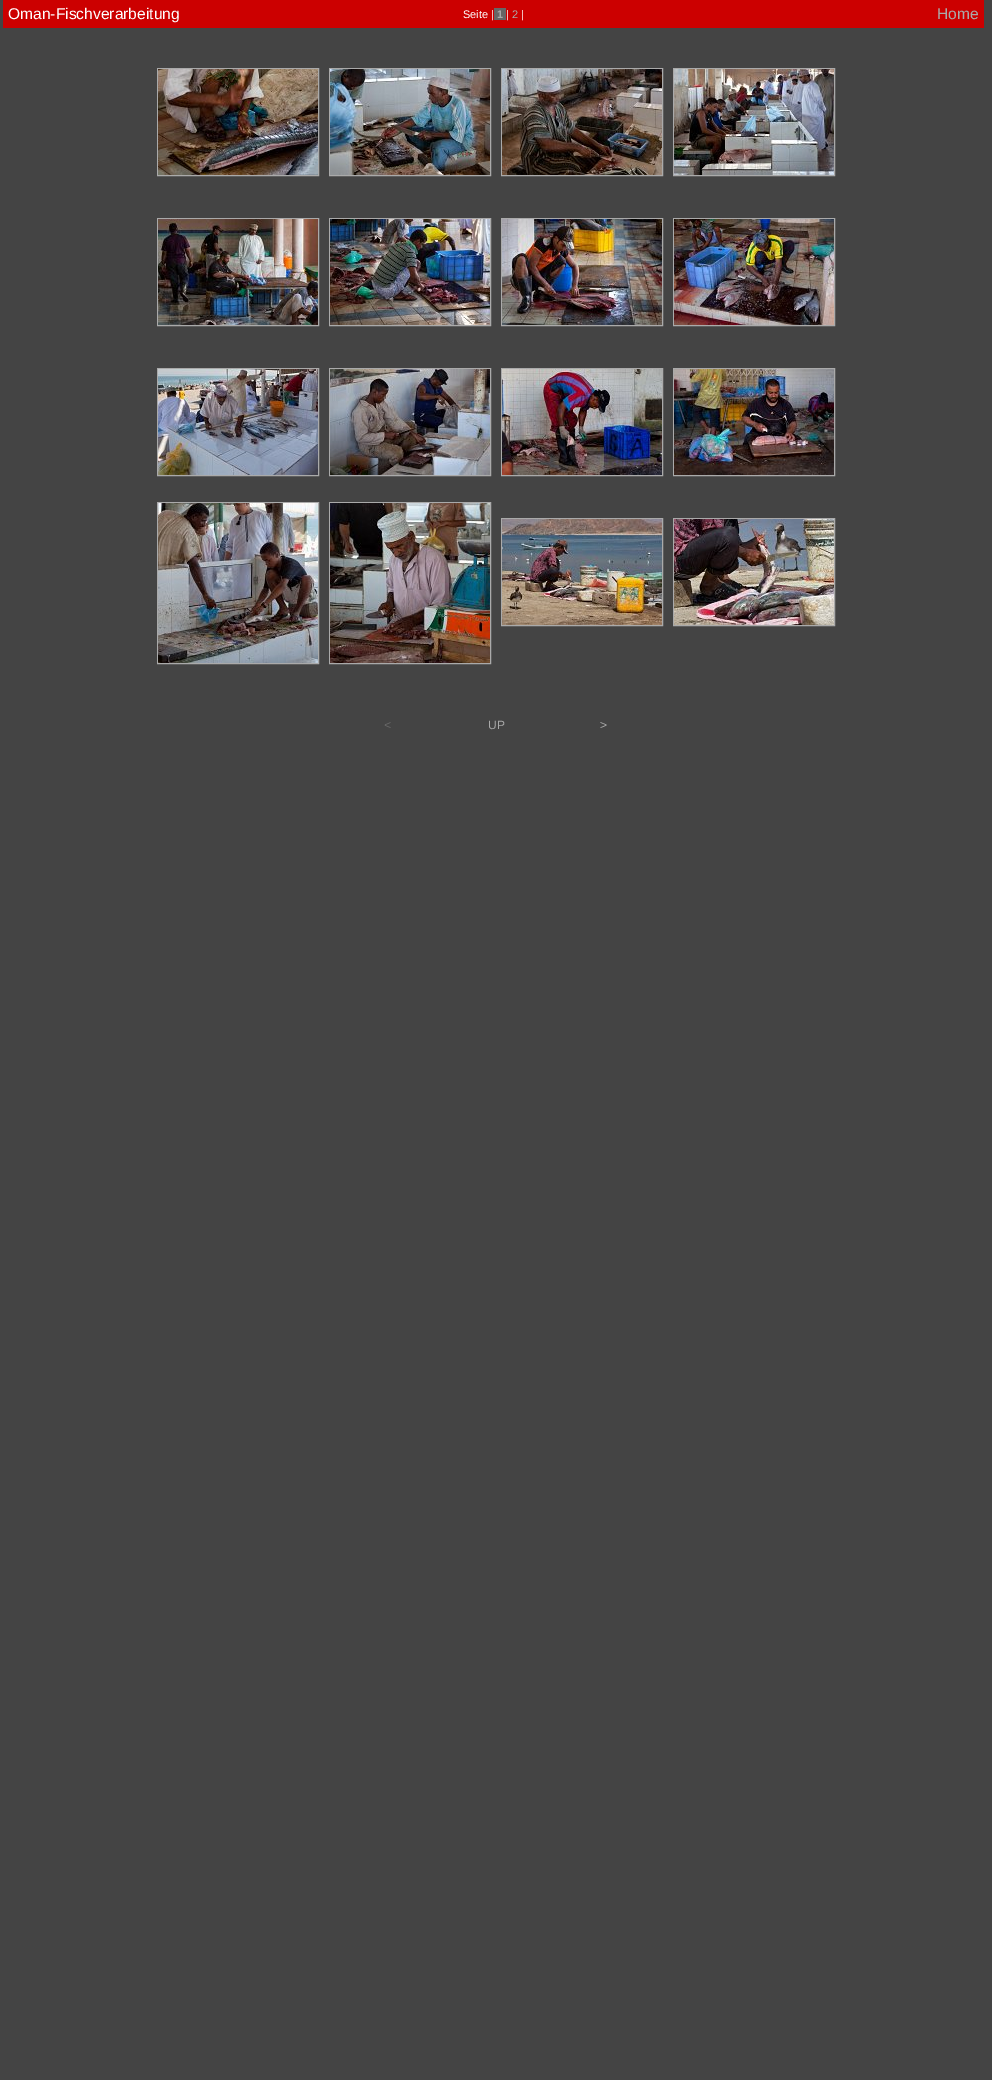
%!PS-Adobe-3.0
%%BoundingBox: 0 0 992 2080
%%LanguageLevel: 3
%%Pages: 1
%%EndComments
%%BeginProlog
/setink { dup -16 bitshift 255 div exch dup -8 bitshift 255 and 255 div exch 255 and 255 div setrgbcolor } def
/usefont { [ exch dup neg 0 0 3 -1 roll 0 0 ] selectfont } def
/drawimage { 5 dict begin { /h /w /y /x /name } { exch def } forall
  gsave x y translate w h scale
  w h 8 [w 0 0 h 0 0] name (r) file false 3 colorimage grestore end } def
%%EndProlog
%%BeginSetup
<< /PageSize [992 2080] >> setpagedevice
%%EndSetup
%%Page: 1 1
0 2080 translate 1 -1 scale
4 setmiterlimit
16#444444 setink
0 0 992 2080 rectfill
16#CC0000 setink
3 0 981 28 rectfill
/LiberationSans-Regular 15.6 usefont
16#FFFFFF setink
8 19 moveto (Oman-Fischverarbeitung) show
/LiberationSans-Regular 11 usefont
463 18 moveto (Seite |) show
16#666666 setink
494 8 12 12 rectfill
/LiberationSans-Bold 11 usefont
16#AAAAAA setink
497 18 moveto (1) show
/LiberationSans-Regular 11 usefont
16#FFFFFF setink
506 18 moveto (|) show
16#AAAAAA setink
512 18 moveto (2) show
16#FFFFFF setink
521 18 moveto (|) show
/LiberationSans-Regular 15.6 usefont
16#AAAAAA setink
937 19 moveto (Home) show
157.5 68.5 161 107 rectstroke
(img1.raw) 158 69 160 106 drawimage
329.5 68.5 161 107 rectstroke
(img2.raw) 330 69 160 106 drawimage
501.5 68.5 161 107 rectstroke
(img3.raw) 502 69 160 106 drawimage
673.5 68.5 161 107 rectstroke
(img4.raw) 674 69 160 106 drawimage
157.5 218.5 161 107 rectstroke
(img5.raw) 158 219 160 106 drawimage
329.5 218.5 161 107 rectstroke
(img6.raw) 330 219 160 106 drawimage
501.5 218.5 161 107 rectstroke
(img7.raw) 502 219 160 106 drawimage
673.5 218.5 161 107 rectstroke
(img8.raw) 674 219 160 106 drawimage
157.5 368.5 161 107 rectstroke
(img9.raw) 158 369 160 106 drawimage
329.5 368.5 161 107 rectstroke
(img10.raw) 330 369 160 106 drawimage
501.5 368.5 161 107 rectstroke
(img11.raw) 502 369 160 106 drawimage
673.5 368.5 161 107 rectstroke
(img12.raw) 674 369 160 106 drawimage
157.5 502.5 161 161 rectstroke
(img13.raw) 158 503 160 160 drawimage
329.5 502.5 161 161 rectstroke
(img14.raw) 330 503 160 160 drawimage
501.5 518.5 161 107 rectstroke
(img15.raw) 502 519 160 106 drawimage
673.5 518.5 161 107 rectstroke
(img16.raw) 674 519 160 106 drawimage
/LiberationSans-Italic 12 usefont
16#696969 setink
384 729 moveto (<) show
/LiberationSans-Regular 12 usefont
16#AAAAAA setink
488 729 moveto (UP) show
600 729 moveto (>) show
showpage
%%EOF
